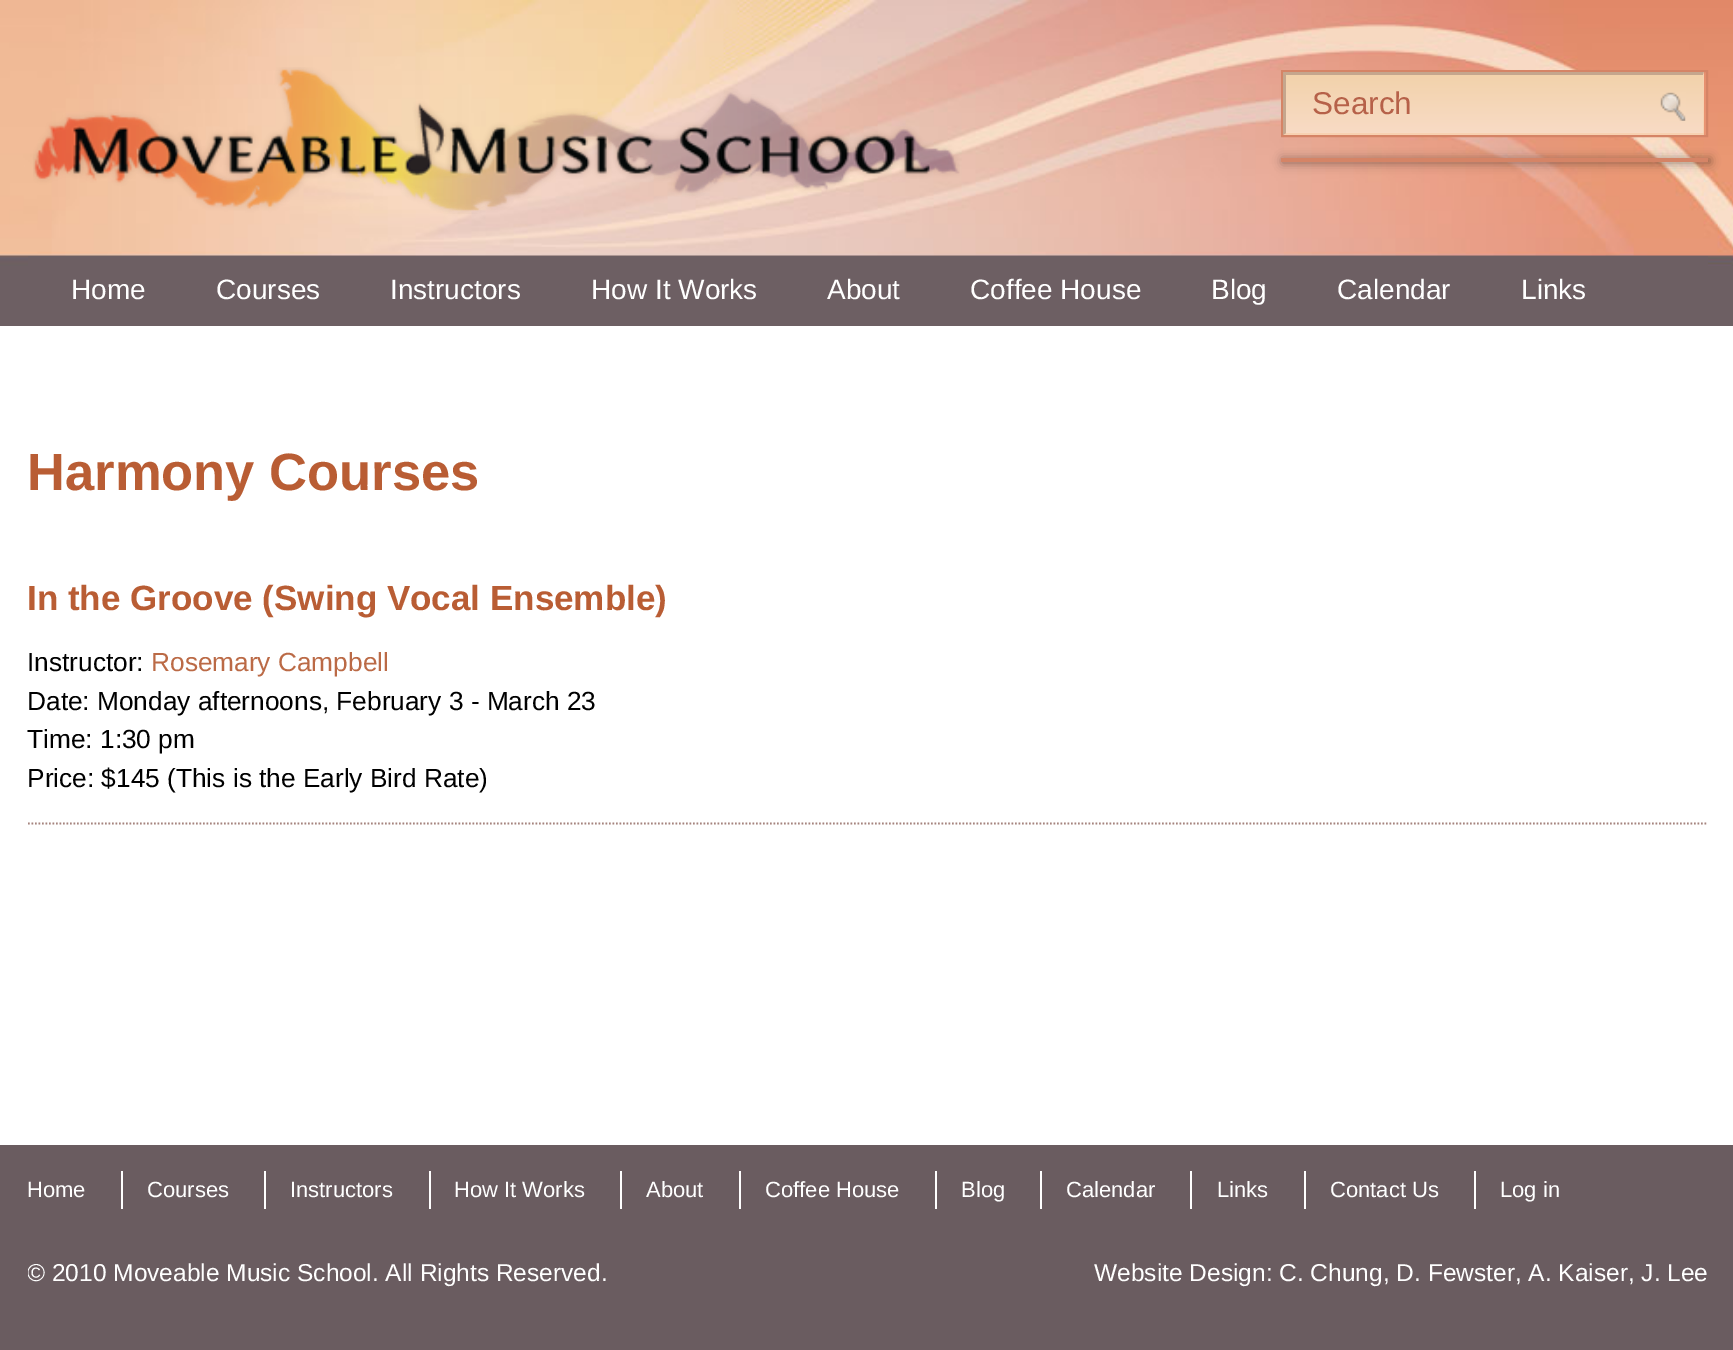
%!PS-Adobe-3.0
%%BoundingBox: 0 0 1733 1350
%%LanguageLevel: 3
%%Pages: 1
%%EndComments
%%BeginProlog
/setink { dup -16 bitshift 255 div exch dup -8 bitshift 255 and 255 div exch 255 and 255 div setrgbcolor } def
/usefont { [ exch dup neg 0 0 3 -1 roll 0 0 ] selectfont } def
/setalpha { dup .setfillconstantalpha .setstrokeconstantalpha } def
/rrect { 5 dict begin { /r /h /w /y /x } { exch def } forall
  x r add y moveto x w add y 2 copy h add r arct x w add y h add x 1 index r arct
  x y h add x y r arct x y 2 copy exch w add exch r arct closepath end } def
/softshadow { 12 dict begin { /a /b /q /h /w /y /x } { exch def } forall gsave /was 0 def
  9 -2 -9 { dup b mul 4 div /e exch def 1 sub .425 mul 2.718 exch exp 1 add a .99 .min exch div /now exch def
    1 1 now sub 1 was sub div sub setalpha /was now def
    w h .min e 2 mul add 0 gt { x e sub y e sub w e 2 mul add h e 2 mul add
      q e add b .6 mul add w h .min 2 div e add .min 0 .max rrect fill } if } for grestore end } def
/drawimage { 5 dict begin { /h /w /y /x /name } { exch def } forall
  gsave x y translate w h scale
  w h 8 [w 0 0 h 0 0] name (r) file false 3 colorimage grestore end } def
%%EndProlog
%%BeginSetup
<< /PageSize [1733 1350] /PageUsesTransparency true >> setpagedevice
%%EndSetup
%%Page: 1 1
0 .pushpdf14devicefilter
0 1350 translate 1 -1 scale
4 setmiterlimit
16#FFFFFF setink
0 0 1733 1350 rectfill
16#6D5F63 setink
0 266 1733 60 rectfill
(img1.raw) 0 0 1733 266 drawimage
(img2.raw) 33 67 927 147 drawimage
16#D58466 setink
2 setlinewidth
1282 71 425 65 rectstroke
gsave 1286 75 moveto 1703 75 lineto 1703 133 lineto 1286 133 lineto closepath clip newpath
<< /ShadingType 2 /ColorSpace /DeviceRGB /Coords [1286 75 1286 133] /Extend [true true] /Function << /FunctionType 2 /Domain [0 1] /C0 [0.949 0.824 0.671] /C1 [0.973 0.859 0.773] /N 1 >> >> shfill grestore
16#C5A68D setink
1283 72 moveto 1704 72 lineto 1703 75 lineto 1286 75 lineto closepath fill
16#F7D1B1 setink
1704 72 moveto 1704 135 lineto 1703 133 lineto 1703 75 lineto closepath fill
1704 135 moveto 1283 135 lineto 1286 133 lineto 1703 133 lineto closepath fill
16#C5A68D setink
1283 135 moveto 1283 72 lineto 1286 75 lineto 1286 133 lineto closepath fill
/LiberationSans-Regular 31.5 usefont
16#B66149 setink
1312 114 moveto (Search) show
(img3.raw) 1660 92 26 29 drawimage
16#000000 setink
1283 159 427 4 0 5 0.4 softshadow
16#D58466 setink
1281 158 427 4 rectfill
16#6D5F63 setink
28 256 1680 10 rectfill
/LiberationSans-Regular 28 usefont
16#FFFFFF setink
[
    [(Home) 71 299]
    [(Courses) 216 299]
    [(Instructors) 390 299]
    [(How It Works) 591 299]
    [(About) 827 299]
    [(Coffee House) 970 299]
    [(Blog) 1211 299]
    [(Calendar) 1337 299]
    [(Links) 1521 299]
] { aload pop moveto show } forall
/LiberationSans-Bold 52.5 usefont
16#B95D34 setink
27 490 moveto (Harmony Courses) show
16#A5847E setink
1.8 setlinewidth
[1.75 1.75] 0 setdash
28 823.5 moveto 1708 823.5 lineto stroke
/LiberationSans-Bold 35 usefont
16#B95D34 setink
27 610 moveto (In the Groove \(Swing Vocal Ensemble\)) show
/LiberationSans-Regular 26.25 usefont
16#000000 setink
27 671 moveto (Instructor:) show
16#BB6A46 setink
151 671 moveto (Rosemary Campbell) show
16#000000 setink
[
    [(Date: Monday afternoons, February 3 - March 23) 27 710]
    [(Time: 1:30 pm) 27 748]
    [(Price: $145 \(This is the Early Bird Rate\)) 27 787]
] { aload pop moveto show } forall
16#6A5C60 setink
0 1145 1733 205 rectfill
16#FFFFFF setink
121 1171 2 38 rectfill
/LiberationSans-Regular 22 usefont
27 1197 moveto (Home) show
264 1171 2 38 rectfill
147 1197 moveto (Courses) show
429 1171 2 38 rectfill
290 1197 moveto (Instructors) show
620 1171 2 38 rectfill
454 1197 moveto (How It Works) show
739 1171 2 38 rectfill
646 1197 moveto (About) show
935 1171 2 38 rectfill
765 1197 moveto (Coffee House) show
1040 1171 2 38 rectfill
961 1197 moveto (Blog) show
1190 1171 2 38 rectfill
1066 1197 moveto (Calendar) show
1304 1171 2 38 rectfill
1217 1197 moveto (Links) show
1474 1171 2 38 rectfill
1330 1197 moveto (Contact Us) show
1500 1197 moveto (Log in) show
gsave
28 1145 1680 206 rectclip
/LiberationSans-Regular 24.5 usefont
27 1281 moveto (© 2010 Moveable Music School. All Rights Reserved.) show
grestore
/LiberationSans-Regular 24.5 usefont
1094 1281 moveto (Website Design: C. Chung, D. Fewster, A. Kaiser, J. Lee) show
.poppdf14devicefilter showpage
%%EOF
